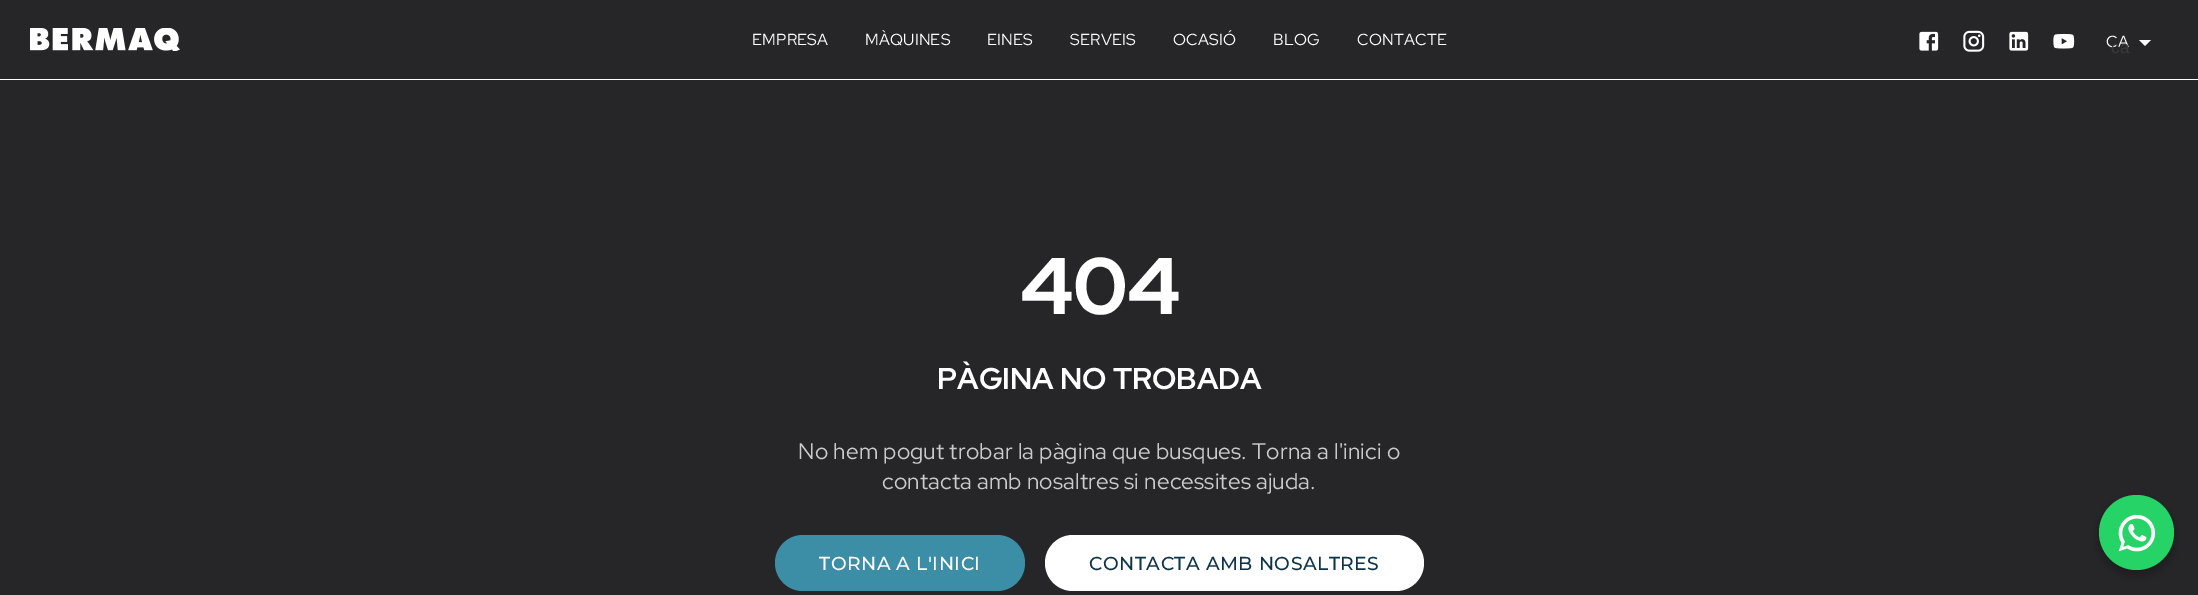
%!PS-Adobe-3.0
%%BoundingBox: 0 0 2198 595
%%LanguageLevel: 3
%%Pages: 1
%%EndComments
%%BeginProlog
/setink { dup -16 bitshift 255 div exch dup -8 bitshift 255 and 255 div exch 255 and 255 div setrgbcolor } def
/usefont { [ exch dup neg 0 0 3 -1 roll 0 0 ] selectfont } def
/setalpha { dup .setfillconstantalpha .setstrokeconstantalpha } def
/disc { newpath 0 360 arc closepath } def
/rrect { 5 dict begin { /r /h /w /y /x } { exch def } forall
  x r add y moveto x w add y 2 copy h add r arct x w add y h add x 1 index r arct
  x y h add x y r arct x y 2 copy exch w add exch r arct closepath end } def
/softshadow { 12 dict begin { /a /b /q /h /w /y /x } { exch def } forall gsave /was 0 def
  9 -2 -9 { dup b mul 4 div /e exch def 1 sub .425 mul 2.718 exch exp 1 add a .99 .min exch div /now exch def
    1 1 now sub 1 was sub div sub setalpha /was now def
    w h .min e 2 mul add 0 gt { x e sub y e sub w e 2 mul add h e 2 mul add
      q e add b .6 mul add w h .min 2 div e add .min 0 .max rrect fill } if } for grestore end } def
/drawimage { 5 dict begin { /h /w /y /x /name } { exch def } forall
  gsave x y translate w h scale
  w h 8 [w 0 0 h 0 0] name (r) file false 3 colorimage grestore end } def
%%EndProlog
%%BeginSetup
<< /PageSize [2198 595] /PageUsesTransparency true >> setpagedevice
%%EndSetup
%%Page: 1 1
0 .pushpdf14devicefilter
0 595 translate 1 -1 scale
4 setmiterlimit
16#262628 setink
0 0 2198 595 rectfill
16#FFFFFF setink
0 79 2198 1 rectfill
(img1.raw) 30 28 150 23 drawimage
/RedHatDisplay-Regular 16 usefont
752 45 moveto 0.25 0 (EMPRESA) ashow
865 45 moveto 0.25 0 (MÀQUINES) ashow
987 45 moveto 0.25 0 (EINES) ashow
1070 45 moveto 0.25 0 (SERVEIS) ashow
1173 45 moveto 0.25 0 (OCASIÓ) ashow
1273 45 moveto 0.25 0 (BLOG) ashow
1357 45 moveto 0.25 0 (CONTACTE) ashow
(img2.raw) 1919 31 20 20 drawimage
(img3.raw) 1963 30 22 22 drawimage
(img4.raw) 2009 31 20 20 drawimage
(img5.raw) 2053 33 22 16 drawimage
2106 47 moveto (CA) show
2139 40 moveto 2145 46 lineto 2151 40 lineto closepath fill
/LiberationSans-Regular 17 usefont
16#3A3A3C setink
2111 53 moveto (ca) show
/RedHatDisplay-ExtraBold 80 usefont
16#FFFFFF setink
1020 314 moveto -1 0 (404) ashow
/RedHatDisplay-Bold 30 usefont
937 389 moveto (PÀGINA NO TROBADA) show
/RedHatDisplay-Regular 22.5 usefont
16#CACACA setink
798 459 moveto 0.2 0 (No hem pogut trobar la pàgina que busques. Torna a l'inici o) ashow
882 489 moveto 0.2 0 (contacta amb nosaltres si necessites ajuda.) ashow
16#3B8EA5 setink
775 535 250 56 28 rrect fill
/Montserrat-Medium 18.75 usefont
16#FFFFFF setink
819 570 moveto 0.5 0 (TORNA A L'INICI) ashow
1045 535 379 56 28 rrect fill
16#0E3449 setink
1089 570 moveto 0.5 0 (CONTACTA AMB NOSALTRES) ashow
16#000000 setink
2099 500 75 75 37.5 6 0.3 softshadow
16#25D366 setink
2136.5 532.5 37.5 disc fill
(img6.raw) 2118 514 38 38 drawimage
.poppdf14devicefilter showpage
%%EOF
